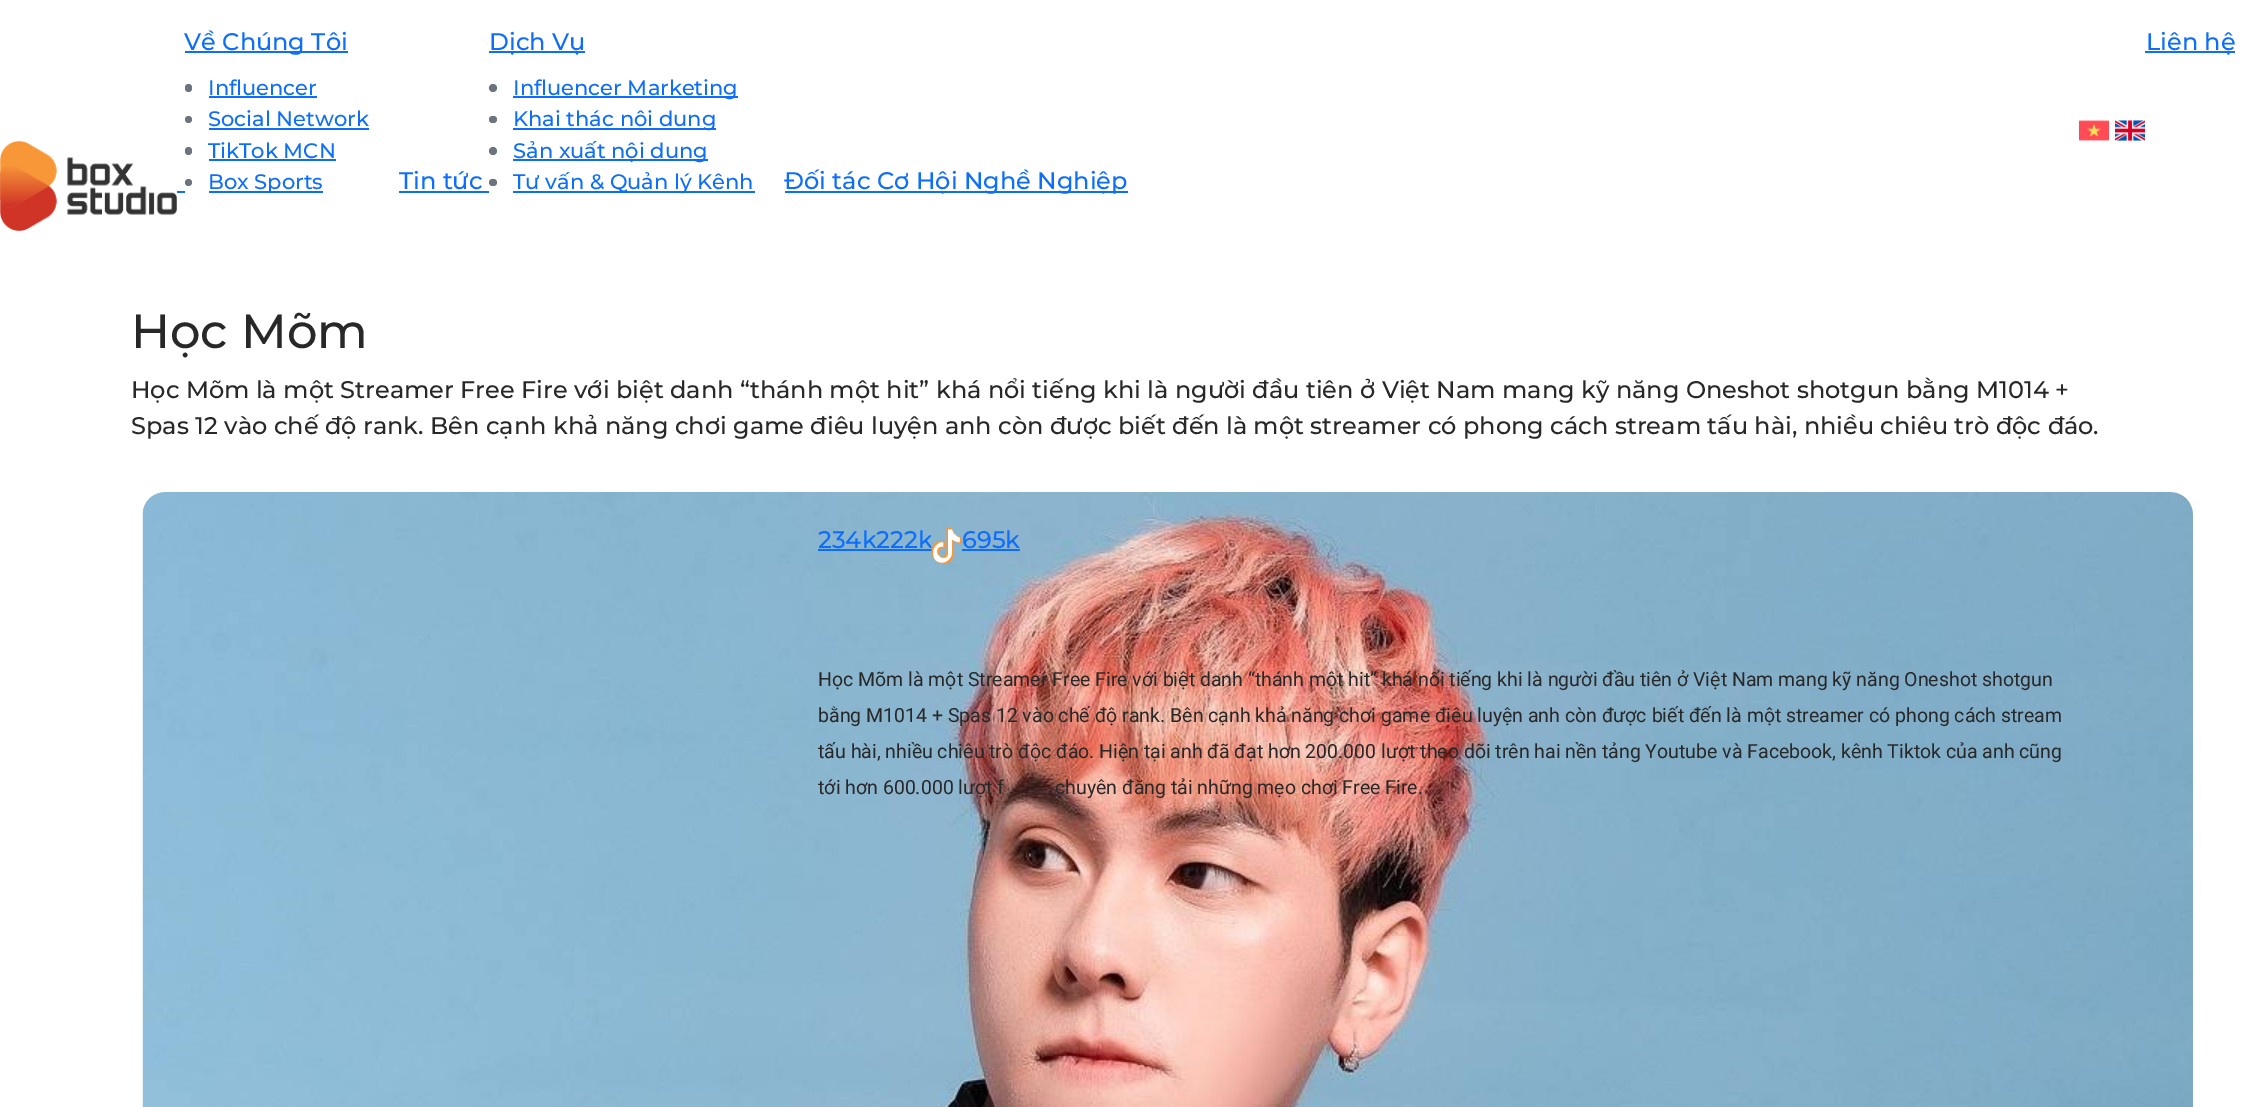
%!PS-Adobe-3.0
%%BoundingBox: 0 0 2252 1107
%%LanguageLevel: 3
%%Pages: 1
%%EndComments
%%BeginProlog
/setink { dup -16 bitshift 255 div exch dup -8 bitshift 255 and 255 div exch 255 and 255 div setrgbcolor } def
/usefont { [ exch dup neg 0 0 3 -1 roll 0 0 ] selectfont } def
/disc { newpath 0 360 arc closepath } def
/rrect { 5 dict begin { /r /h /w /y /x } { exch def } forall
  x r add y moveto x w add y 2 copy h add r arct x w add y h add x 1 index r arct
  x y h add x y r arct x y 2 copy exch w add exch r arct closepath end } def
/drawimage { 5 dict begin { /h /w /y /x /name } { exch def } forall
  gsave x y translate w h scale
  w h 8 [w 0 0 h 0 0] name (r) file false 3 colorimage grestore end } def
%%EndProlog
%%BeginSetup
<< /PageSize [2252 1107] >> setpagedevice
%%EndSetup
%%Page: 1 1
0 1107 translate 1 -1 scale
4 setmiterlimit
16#FFFFFF setink
0 0 2252 1107 rectfill
(img1.raw) 0 141 177 90 drawimage
16#0D6EFD setink
185 51 163 2 rectfill
/Montserrat-Medium 24 usefont
184 50 moveto (Về Chúng Tôi) show
16#6C757D setink
185 84 7 8 3.5 rrect fill
/Montserrat-Medium 21 usefont
16#0D6EFD setink
208 95 moveto (Influencer) show
209 96 108 2 rectfill
16#6C757D setink
188.5 119.5 3.5 disc fill
16#0D6EFD setink
208 126 moveto (Social Network) show
209 128 160 2 rectfill
16#6C757D setink
185 147 7 8 3.5 rrect fill
16#0D6EFD setink
208 158 moveto (TikTok MCN) show
209 159 127 2 rectfill
16#6C757D setink
188.5 182.5 3.5 disc fill
16#0D6EFD setink
209 191 114 2 rectfill
208 189 moveto (Box Sports) show
/Montserrat-Medium 24 usefont
399 189 moveto (Tin tức) show
399 191 90 2 rectfill
489 51 96 2 rectfill
489 50 moveto (Dịch Vụ) show
16#6C757D setink
493 88 4 disc fill
16#0D6EFD setink
513 96 225 2 rectfill
/Montserrat-Medium 21 usefont
513 95 moveto (Influencer Marketing) show
16#6C757D setink
489 116 8 7 3.5 rrect fill
16#0D6EFD setink
513 128 203 2 rectfill
513 126 moveto (Khai thác nội dung) show
16#6C757D setink
493 151 4 disc fill
16#0D6EFD setink
513 159 195 2 rectfill
513 158 moveto (Sản xuất nội dung) show
16#6C757D setink
489 179 8 7 3.5 rrect fill
16#0D6EFD setink
513 191 242 2 rectfill
513 189 moveto (Tư vấn & Quản lý Kênh) show
785 191 343 2 rectfill
/Montserrat-Medium 24 usefont
784 189 moveto (Đối tác Cơ Hội Nghề Nghiệp) show
177 191 8 2 rectfill
2145 51 90 2 rectfill
2146 50 moveto (Liên hệ) show
(img2.raw) 2079 120 30 21 drawimage
(img3.raw) 2115 120 30 21 drawimage
/Montserrat-Medium 48 usefont
16#282828 setink
131 348 moveto (Học Mõm) show
/Montserrat-Medium 24 usefont
131 398 moveto (Học Mõm là một Streamer Free Fire với biệt danh “thánh một hit” khá nổi tiếng khi là người đầu tiên ở Việt Nam mang kỹ năng Oneshot shotgun bằng M1014 +) show
131 434 moveto (Spas 12 vào chế độ rank. Bên cạnh khả năng chơi game điêu luyện anh còn được biết đến là một streamer có phong cách stream tấu hài, nhiều chiêu trò độc đáo.) show
(img4.raw) 142 492 2051 615 drawimage
16#0D6EFD setink
818 548 moveto (234k222k) show
818 549 114 2 rectfill
(img5.raw) 931 528 31 36 drawimage
962 548 moveto (695k) show
962 549 58 2 rectfill
/Roboto-Regular 19.5 usefont
16#282828 setink
[
    [(Học Mõm là một Streamer Free Fire với biệt danh “thánh một hit” khá nổi tiếng khi là người đầu tiên ở Việt Nam mang kỹ năng Oneshot shotgun) 818 686]
    [(bằng M1014 + Spas 12 vào chế độ rank. Bên cạnh khả năng chơi game điêu luyện anh còn được biết đến là một streamer có phong cách stream) 818 722]
    [(tấu hài, nhiều chiêu trò độc đáo. Hiện tại anh đã đạt hơn 200.000 lượt theo dõi trên hai nền tảng Youtube và Facebook, kênh Tiktok của anh cũng) 818 758]
    [(tới hơn 600.000 lượt f) 818 794]
    [(chuyên đăng tải những mẹo chơi Free Fire.) 1055 794]
] { aload pop moveto show } forall
showpage
%%EOF
